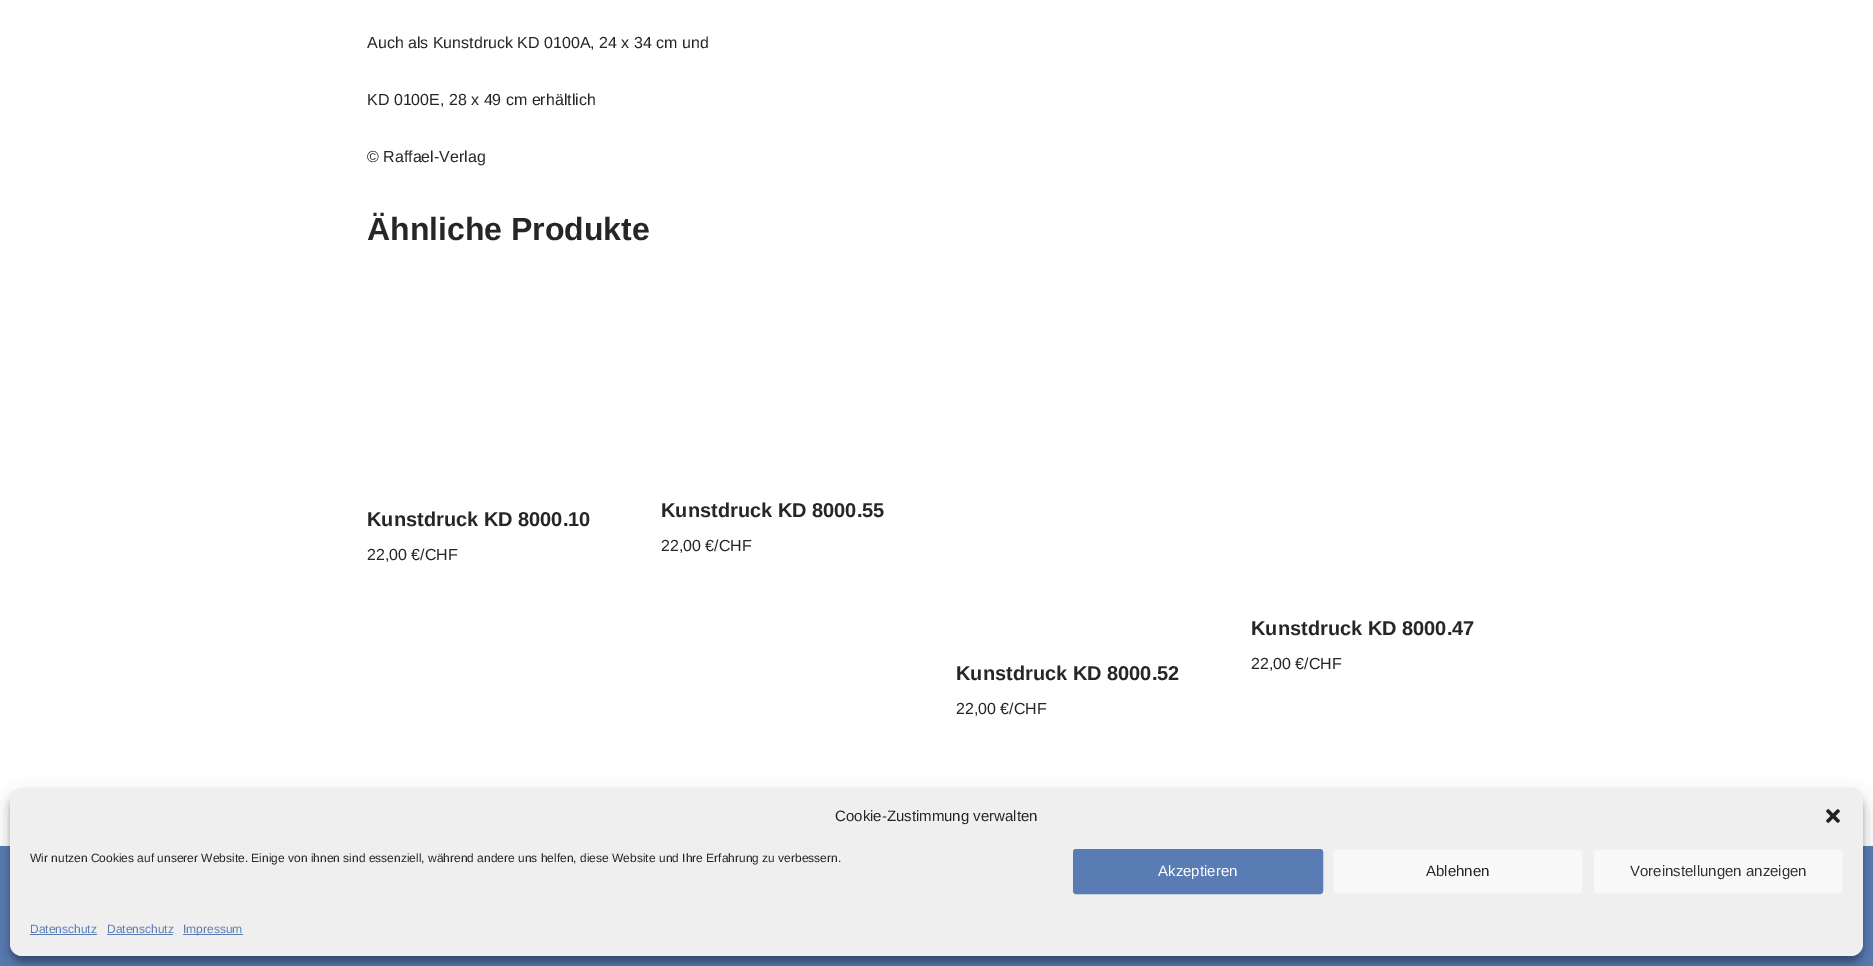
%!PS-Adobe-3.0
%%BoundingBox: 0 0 1873 966
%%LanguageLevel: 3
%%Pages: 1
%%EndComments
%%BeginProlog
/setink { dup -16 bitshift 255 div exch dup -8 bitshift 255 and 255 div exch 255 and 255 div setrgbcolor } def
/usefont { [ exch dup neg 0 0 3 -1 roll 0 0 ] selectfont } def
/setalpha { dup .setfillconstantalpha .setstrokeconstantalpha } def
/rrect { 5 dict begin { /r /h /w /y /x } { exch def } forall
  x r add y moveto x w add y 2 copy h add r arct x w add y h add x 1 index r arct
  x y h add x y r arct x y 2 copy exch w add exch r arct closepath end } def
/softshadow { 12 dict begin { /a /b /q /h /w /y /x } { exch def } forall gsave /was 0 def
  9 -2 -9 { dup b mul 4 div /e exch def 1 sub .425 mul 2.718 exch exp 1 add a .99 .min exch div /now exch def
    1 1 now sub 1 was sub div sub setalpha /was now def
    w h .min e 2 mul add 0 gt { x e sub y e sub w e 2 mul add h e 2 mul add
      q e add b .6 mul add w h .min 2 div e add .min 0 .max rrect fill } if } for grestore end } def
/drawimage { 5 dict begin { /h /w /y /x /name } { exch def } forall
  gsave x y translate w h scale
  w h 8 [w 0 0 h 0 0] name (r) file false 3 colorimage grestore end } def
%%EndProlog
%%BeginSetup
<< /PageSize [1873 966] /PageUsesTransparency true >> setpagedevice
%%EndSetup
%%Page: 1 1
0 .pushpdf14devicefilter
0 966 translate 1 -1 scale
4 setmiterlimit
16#FFFFFF setink
0 0 1873 966 rectfill
/LiberationSans-Regular 16 usefont
16#272626 setink
[
    [(Auch als Kunstdruck KD 0100A, 24 x 34 cm und) 367 48]
    [(KD 0100E, 28 x 49 cm erhältlich) 367 105]
    [(© Raffael-Verlag) 367 162]
] { aload pop moveto show } forall
/LiberationSans-Bold 32 usefont
367 240 moveto (Ähnliche Produkte) show
/LiberationSans-Bold 20 usefont
367 526 moveto (Kunstdruck KD 8000.10) show
/LiberationSans-Regular 16 usefont
367 560 moveto (22,00 €/CHF) show
/LiberationSans-Bold 20 usefont
661 517 moveto (Kunstdruck KD 8000.55) show
/LiberationSans-Regular 16 usefont
661 551 moveto (22,00 €/CHF) show
/LiberationSans-Bold 20 usefont
1251 635 moveto (Kunstdruck KD 8000.47) show
/LiberationSans-Regular 16 usefont
1251 669 moveto (22,00 €/CHF) show
/LiberationSans-Bold 20 usefont
956 680 moveto (Kunstdruck KD 8000.52) show
/LiberationSans-Regular 16 usefont
956 714 moveto (22,00 €/CHF) show
16#597CB4 setink
0 846 1873 120 rectfill
16#000000 setink
10 794 1853 168 12 3 0.23 softshadow
10 798 1853 168 12 10 0.19 softshadow
16#EFEFEF setink
10 788 1853 168 12 rrect fill
/LiberationSans-Regular 15 usefont
16#272626 setink
835 821 moveto (Cookie-Zustimmung verwalten) show
(img1.raw) 1826 809 14 14 drawimage
/LiberationSans-Regular 12 usefont
30 862 moveto (Wir nutzen Cookies auf unserer Website. Einige von ihnen sind essenziell, während andere uns helfen, diese Website und Ihre Erfahrung zu verbessern.) show
16#597CB4 setink
1073.5 849.5 249 44 2.5 rrect gsave fill grestore
stroke
/LiberationSans-Regular 15 usefont
16#FFFFFF setink
1158 876 moveto (Akzeptieren) show
16#F9F9F9 setink
1333.5 849.5 249 44 2.5 rrect gsave fill grestore
16#F2F2F2 setink
stroke
16#272626 setink
1426 876 moveto (Ablehnen) show
16#F9F9F9 setink
1593.5 849.5 249 44 2.5 rrect gsave fill grestore
16#F2F2F2 setink
stroke
16#333333 setink
1630 876 moveto (Voreinstellungen anzeigen) show
/LiberationSans-Regular 12 usefont
16#597CB4 setink
30 933 moveto (Datenschutz) show
30 934 67 1 rectfill
107 933 moveto (Datenschutz) show
107 934 66 1 rectfill
183 934 60 1 rectfill
183 933 moveto (Impressum) show
.poppdf14devicefilter showpage
%%EOF
